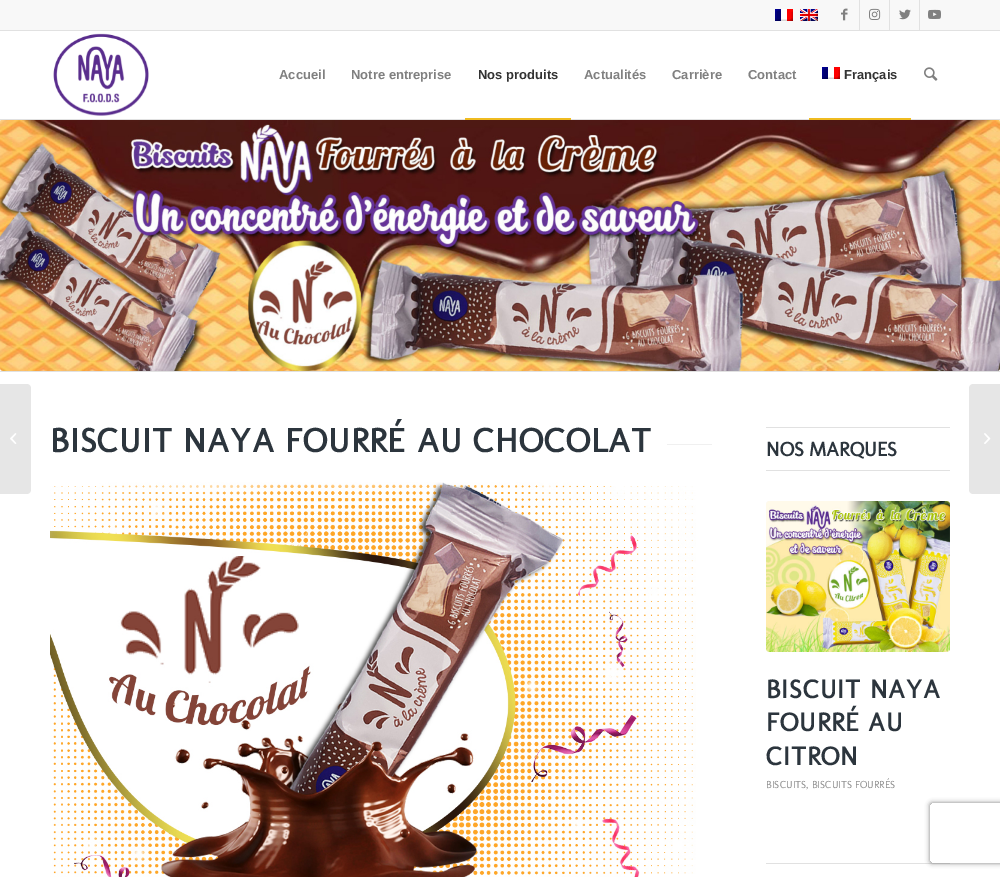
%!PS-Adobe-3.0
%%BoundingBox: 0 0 1000 877
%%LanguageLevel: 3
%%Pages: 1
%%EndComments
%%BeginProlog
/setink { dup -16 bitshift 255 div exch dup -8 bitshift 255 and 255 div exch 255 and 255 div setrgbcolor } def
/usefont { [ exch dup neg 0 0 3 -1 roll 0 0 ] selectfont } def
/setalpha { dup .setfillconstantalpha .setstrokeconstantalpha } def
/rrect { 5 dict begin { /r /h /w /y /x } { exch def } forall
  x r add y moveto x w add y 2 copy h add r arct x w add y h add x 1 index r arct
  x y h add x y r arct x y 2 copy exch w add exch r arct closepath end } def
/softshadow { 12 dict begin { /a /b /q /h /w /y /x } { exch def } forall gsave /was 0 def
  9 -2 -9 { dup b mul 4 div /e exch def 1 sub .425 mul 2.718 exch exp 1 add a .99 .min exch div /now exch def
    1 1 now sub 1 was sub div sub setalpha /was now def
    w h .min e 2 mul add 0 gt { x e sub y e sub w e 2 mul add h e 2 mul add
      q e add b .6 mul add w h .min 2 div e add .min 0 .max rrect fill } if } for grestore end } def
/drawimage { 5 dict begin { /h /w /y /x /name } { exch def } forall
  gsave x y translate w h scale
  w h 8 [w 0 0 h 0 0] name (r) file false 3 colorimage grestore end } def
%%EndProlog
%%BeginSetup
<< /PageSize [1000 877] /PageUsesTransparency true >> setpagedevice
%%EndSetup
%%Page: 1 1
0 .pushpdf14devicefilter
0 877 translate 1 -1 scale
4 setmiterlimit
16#FFFFFF setink
0 0 1000 877 rectfill
16#F8F8F8 setink
0 0 1000 30 rectfill
16#E1E1E1 setink
0 30 1000 1 rectfill
(img1.raw) 775 9 18 12 drawimage
(img2.raw) 800 9 18 12 drawimage
859 0 1 30 rectfill
(img3.raw) 841 8 7 13 drawimage
889 0 1 30 rectfill
(img4.raw) 869 8 12 12 drawimage
919 0 1 30 rectfill
(img5.raw) 899 9 12 11 drawimage
(img6.raw) 928 9 13 10 drawimage
0 119 1000 1 rectfill
(img7.raw) 53 33 96 83 drawimage
/LiberationSans-Bold 13 usefont
16#808080 setink
279 79 moveto (Accueil) show
351 79 moveto (Notre entreprise) show
16#333333 setink
478 79 moveto (Nos produits) show
16#EFBB20 setink
465 118 106 2 rectfill
16#808080 setink
[
    [(Actualités) 584 79]
    [(Carrière) 672 79]
    [(Contact) 748 79]
] { aload pop moveto show } forall
(img1.raw) 822 67 18 12 drawimage
16#333333 setink
844 79 moveto (Français) show
16#EFBB20 setink
809 118 102 2 rectfill
(img8.raw) 924 67 14 14 drawimage
16#E6E6E6 setink
0 384 moveto 27 384 lineto 29 384 31 386 31 388 curveto 31 490 lineto 31 492 29 494 27 494 curveto 0 494 lineto closepath fill
(img9.raw) 10 433 7 11 drawimage
(img10.raw) 0 120 1000 251 drawimage
16#E1E1E1 setink
0 371 1000 1 rectfill
/Molengo-Bold 34 usefont
16#2C353D setink
50 452 moveto 1 0 (BISCUIT NAYA FOURRÉ AU CHOCOLAT) ashow
16#F0F0F0 setink
667 444 45 1 rectfill
(img11.raw) 50 482 646 395 drawimage
16#E1E1E1 setink
766 427 184 1 rectfill
766 470 184 1 rectfill
/Molengo-Bold 20 usefont
16#2C353D setink
766 456 moveto (NOS MARQUES) show
16#F8F8F8 setink
766 501 184 151 3 rrect fill
(img12.raw) 766 501 184 151 drawimage
/Molengo-Bold 26 usefont
16#2C353D setink
766 698 moveto 1 0 (BISCUIT NAYA) ashow
766 731 moveto 1 0 (FOURRÉ AU) ashow
766 765 moveto 1 0 (CITRON) ashow
/Molengo-Regular 10.4 usefont
16#919191 setink
766 788 moveto (BISCUITS, BISCUITS FOURRÉS) show
16#E1E1E1 setink
766 863 184 1 rectfill
16#E6E6E6 setink
973 384 moveto 1000 384 lineto 1000 494 lineto 973 494 lineto 971 494 969 492 969 490 curveto 969 388 lineto 969 386 971 384 973 384 curveto closepath fill
(img13.raw) 984 433 7 11 drawimage
gsave
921 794 moveto 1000 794 lineto 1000 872 lineto 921 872 lineto closepath 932 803 moveto 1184 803 lineto 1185 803 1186 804 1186 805 curveto 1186 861 lineto 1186 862 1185 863 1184 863 curveto 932 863 lineto 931 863 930 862 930 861 curveto 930 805 lineto 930 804 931 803 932 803 curveto closepath eoclip newpath
16#808080 setink
930 803 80 60 2 2.5 1 softshadow
grestore
.poppdf14devicefilter showpage
%%EOF
